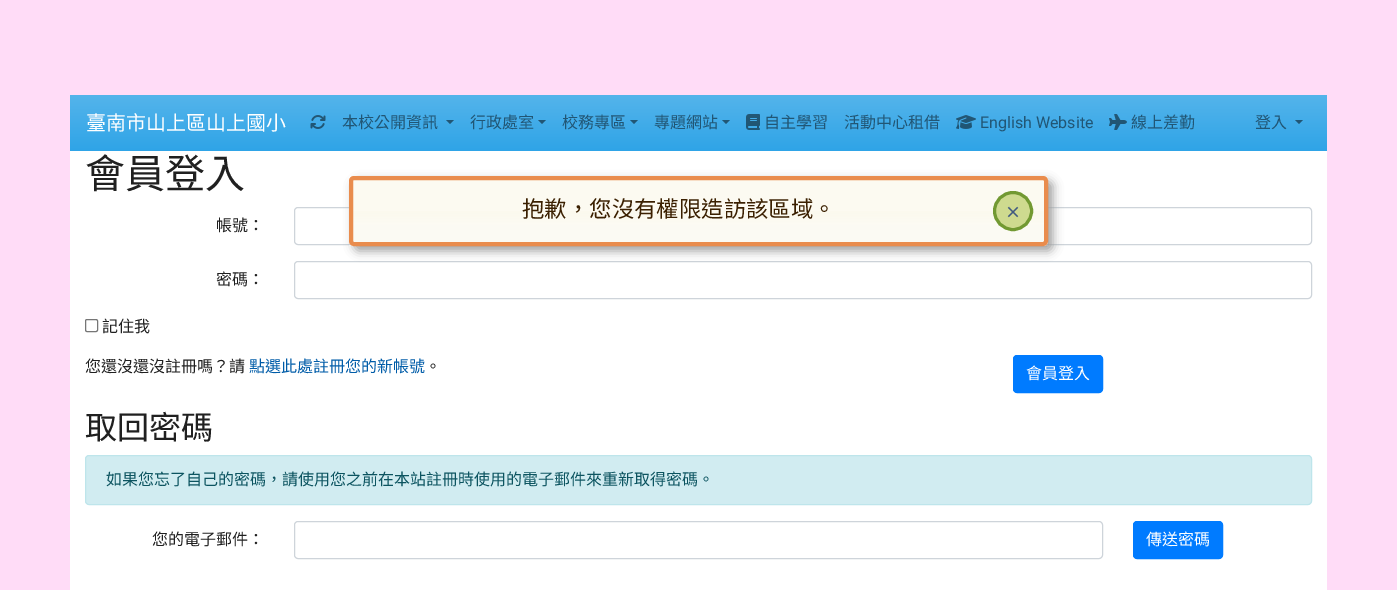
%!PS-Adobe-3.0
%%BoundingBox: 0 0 1397 590
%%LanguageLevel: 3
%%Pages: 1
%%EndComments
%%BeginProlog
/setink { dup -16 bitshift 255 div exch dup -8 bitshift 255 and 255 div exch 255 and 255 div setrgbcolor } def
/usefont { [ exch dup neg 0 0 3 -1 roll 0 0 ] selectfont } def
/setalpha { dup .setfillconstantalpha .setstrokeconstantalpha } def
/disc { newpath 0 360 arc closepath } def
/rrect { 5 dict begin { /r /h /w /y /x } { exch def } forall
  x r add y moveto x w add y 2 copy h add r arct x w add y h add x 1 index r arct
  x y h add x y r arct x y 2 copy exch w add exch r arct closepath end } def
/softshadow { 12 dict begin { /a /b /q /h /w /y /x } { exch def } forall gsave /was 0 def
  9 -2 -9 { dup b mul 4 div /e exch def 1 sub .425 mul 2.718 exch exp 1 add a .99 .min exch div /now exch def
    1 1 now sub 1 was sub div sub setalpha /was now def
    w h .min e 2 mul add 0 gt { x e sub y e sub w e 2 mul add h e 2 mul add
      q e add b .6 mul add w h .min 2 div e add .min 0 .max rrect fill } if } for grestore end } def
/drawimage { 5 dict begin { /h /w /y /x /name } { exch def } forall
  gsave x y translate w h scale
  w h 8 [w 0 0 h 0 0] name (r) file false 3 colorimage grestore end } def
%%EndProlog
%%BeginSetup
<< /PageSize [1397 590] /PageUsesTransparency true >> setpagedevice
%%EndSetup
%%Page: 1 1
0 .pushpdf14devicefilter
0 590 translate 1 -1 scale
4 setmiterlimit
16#FFDCF7 setink
0 0 1397 590 rectfill
gsave 70 95 moveto 1327 95 lineto 1327 151 lineto 70 151 lineto closepath clip newpath
<< /ShadingType 2 /ColorSpace /DeviceRGB /Coords [699 95 699 151] /Extend [true true] /Function << /FunctionType 2 /Domain [0 1] /C0 [0.329 0.706 0.922] /C1 [0.184 0.643 0.906] /N 1 >> >> shfill grestore
/NotoSansCJKTC-Regular 20 usefont
16#FFFFFF setink
86 130 moveto (臺南市山上區山上國小) show
(img1.raw) 310 115 16 14 drawimage
/NotoSansCJKTC-Regular 16 usefont
16#215675 setink
342 128 moveto (本校公開資訊) show
446 120 moveto 454 120 lineto 450 124 lineto closepath fill
470 128 moveto (行政處室) show
538 120 moveto 546 120 lineto 542 124 lineto closepath fill
562 128 moveto (校務專區) show
630 120 moveto 638 120 lineto 634 124 lineto closepath fill
654 128 moveto (專題網站) show
722 120 moveto 730 120 lineto 726 124 lineto closepath fill
(img2.raw) 746 114 14 16 drawimage
764 128 moveto (自主學習) show
844 128 moveto (活動中心租借) show
(img3.raw) 956 115 20 14 drawimage
/Roboto-Regular 16 usefont
980 128 moveto (English Website) show
(img4.raw) 1109 114 18 16 drawimage
/NotoSansCJKTC-Regular 16 usefont
1131 128 moveto (線上差勤) show
1255 128 moveto (登入) show
1295 120 moveto 1303 120 lineto 1299 124 lineto closepath fill
16#FFFFFF setink
70 151 1257 439 rectfill
/NotoSansCJKTC-Regular 40 usefont
16#202020 setink
85 188 moveto (會員登入) show
/NotoSansCJKTC-Regular 16 usefont
216 231 moveto (帳號：) show
16#CED4DA setink
294.5 207.5 1017 37 3.5 rrect stroke
16#202020 setink
216 285 moveto (密碼：) show
16#CED4DA setink
294.5 261.5 1017 37 3.5 rrect stroke
16#767676 setink
85.5 319.5 12 12 1.5 rrect stroke
16#202020 setink
102 332 moveto (記住我) show
85 372 moveto (您還沒還沒註冊嗎？請) show
16#005CA8 setink
249 372 moveto (點選此處註冊您的新帳號) show
16#202020 setink
425 372 moveto (。) show
16#007BFF setink
1013.5 355.5 89 37 3.5 rrect gsave fill grestore
stroke
16#FFFFFF setink
1026 379 moveto (會員登入) show
/NotoSansCJKTC-Regular 32 usefont
16#202020 setink
85 439 moveto (取回密碼) show
16#D1ECF1 setink
85.5 455.5 1226 49 3.5 rrect gsave fill grestore
16#BEE5EB setink
stroke
/NotoSansCJKTC-Regular 16 usefont
16#0C5460 setink
106 485 moveto (如果您忘了自己的密碼，請使用您之前在本站註冊時使用的電子郵件來重新取得密碼。) show
16#202020 setink
152 545 moveto (您的電子郵件：) show
16#CED4DA setink
294.5 521.5 808 37 3.5 rrect stroke
16#007BFF setink
1133.5 521.5 89 37 3.5 rrect gsave fill grestore
stroke
16#FFFFFF setink
1146 545 moveto (傳送密碼) show
16#9E9E9E setink
354 181 699 70 5 5 1 softshadow
(img5.raw) 349 176 699 70 drawimage
16#E98C4D setink
4 setlinewidth
351 178 695 66 3 rrect stroke
/NotoSansTC-Regular 22.4 usefont
16#3B2001 setink
522 217 moveto (抱歉，您沒有權限造訪該區域。) show
16#CEDA8F setink
1013 211 18.5 disc gsave fill grestore
16#729932 setink
3 setlinewidth
stroke
/NotoSansTC-Bold 16 usefont
16#405A80 setink
1005 218 moveto (×) show
.poppdf14devicefilter showpage
%%EOF
